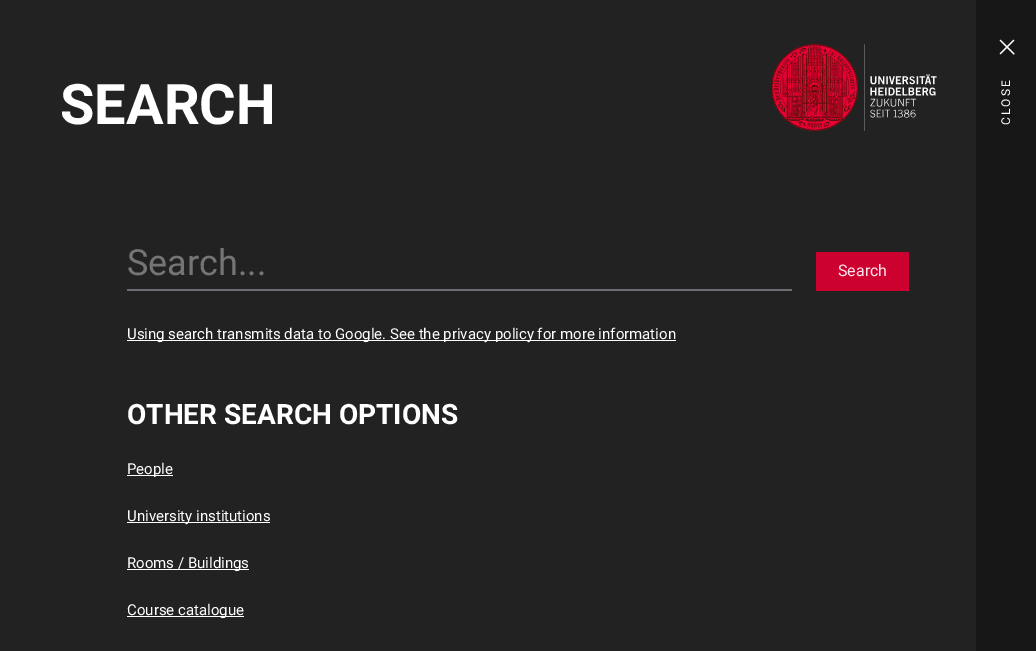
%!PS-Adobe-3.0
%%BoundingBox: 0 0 1036 651
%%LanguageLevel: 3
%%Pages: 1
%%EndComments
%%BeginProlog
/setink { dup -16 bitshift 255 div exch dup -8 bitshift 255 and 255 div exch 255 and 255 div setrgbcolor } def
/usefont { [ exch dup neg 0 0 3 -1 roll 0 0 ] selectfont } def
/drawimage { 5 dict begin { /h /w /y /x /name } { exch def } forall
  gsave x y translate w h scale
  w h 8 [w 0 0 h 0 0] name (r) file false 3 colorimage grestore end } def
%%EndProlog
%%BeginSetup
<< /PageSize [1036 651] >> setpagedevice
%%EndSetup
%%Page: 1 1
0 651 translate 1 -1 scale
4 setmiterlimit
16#222222 setink
0 0 1036 651 rectfill
(img1.raw) 772 44 165 87 drawimage
16#171717 setink
976 0 60 651 rectfill
(img2.raw) 999 39 16 16 drawimage
/Roboto-Regular 12 usefont
16#FFFFFF setink
gsave 1010 125 translate -90 rotate 0 0 moveto 2 0 (CLOSE) ashow grestore
/Roboto-Bold 56 usefont
60 124 moveto (SEARCH) show
16#6A6D71 setink
127 289 665 2 rectfill
/Roboto-Regular 36 usefont
16#757575 setink
127 275 moveto (Search...) show
16#CC0130 setink
816 252 93 39 rectfill
/Roboto-Regular 16 usefont
16#FAE6EA setink
838 276 moveto (Search) show
16#FFFFFF setink
127 340 549 1 rectfill
/Roboto-Regular 15 usefont
127 339 moveto (Using search transmits data to Google. See the privacy policy for more information) show
/Roboto-Bold 28 usefont
127 424 moveto (OTHER SEARCH OPTIONS) show
127 475 46 1 rectfill
/Roboto-Regular 15 usefont
127 474 moveto (People) show
127 522 143 1 rectfill
127 521 moveto (University institutions) show
127 569 122 1 rectfill
127 568 moveto (Rooms / Buildings) show
127 616 117 1 rectfill
127 615 moveto (Course catalogue) show
showpage
%%EOF
